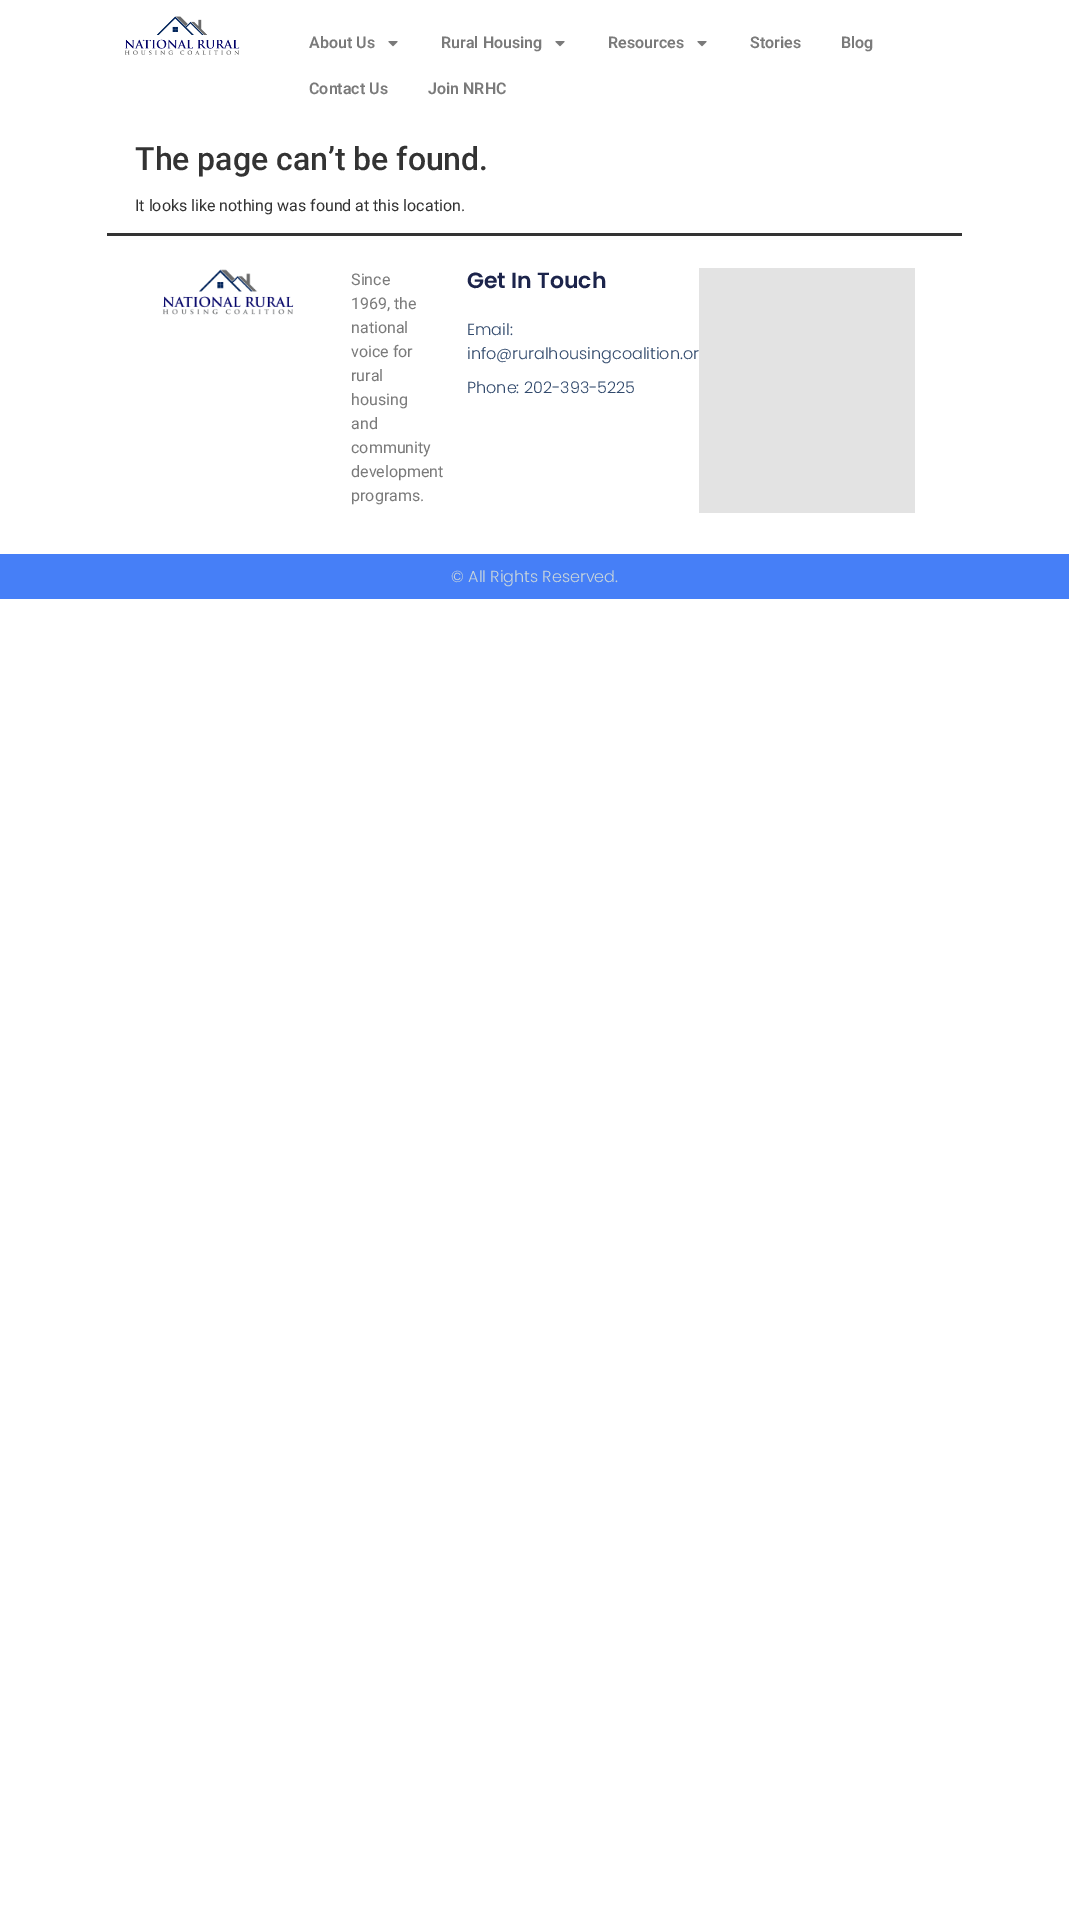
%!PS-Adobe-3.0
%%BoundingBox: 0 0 1069 1920
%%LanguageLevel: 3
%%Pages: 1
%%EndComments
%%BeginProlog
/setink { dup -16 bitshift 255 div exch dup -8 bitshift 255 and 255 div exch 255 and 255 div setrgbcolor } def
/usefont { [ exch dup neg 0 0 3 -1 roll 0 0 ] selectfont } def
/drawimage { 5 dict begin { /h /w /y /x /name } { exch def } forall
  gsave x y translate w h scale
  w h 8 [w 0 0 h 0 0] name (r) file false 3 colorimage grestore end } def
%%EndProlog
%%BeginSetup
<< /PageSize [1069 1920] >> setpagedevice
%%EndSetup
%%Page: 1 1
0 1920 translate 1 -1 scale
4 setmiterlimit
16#FFFFFF setink
0 0 1069 1920 rectfill
(img1.raw) 125 16 115 39 drawimage
/Roboto-SemiBold 16 usefont
16#7A7A7A setink
309 48 moveto (About Us) show
(img2.raw) 388 41 10 6 drawimage
441 48 moveto (Rural Housing) show
(img2.raw) 555 41 10 6 drawimage
608 48 moveto (Resources) show
(img2.raw) 697 41 10 6 drawimage
[
    [(Stories) 750 48]
    [(Blog) 841 48]
    [(Contact Us) 309 94]
    [(Join NRHC) 428 94]
] { aload pop moveto show } forall
/Roboto-Medium 32 usefont
16#333333 setink
135 170 moveto (The page can’t be found.) show
/Roboto-Regular 16 usefont
135 211 moveto (It looks like nothing was found at this location.) show
107 233 855 3 rectfill
(img3.raw) 162 269 132 46 drawimage
16#7A7A7A setink
[
    [(Since) 351 285]
    [(1969, the) 351 309]
    [(national) 351 333]
    [(voice for) 351 357]
    [(rural) 351 381]
    [(housing) 351 405]
    [(and) 351 429]
    [(community) 351 453]
    [(development) 351 477]
    [(programs.) 351 501]
] { aload pop moveto show } forall
/Poppins-SemiBold 22 usefont
16#1C244B setink
467 288 moveto (Get In Touch) show
/Poppins-Light 16 usefont
16#324A6D setink
[
    [(Email:) 467 335]
    [(info@ruralhousingcoalition.or) 467 359]
    [(Phone: 202-393-5225) 467 393]
] { aload pop moveto show } forall
16#E3E3E3 setink
699 268 216 245 rectfill
16#467FF7 setink
0 554 1069 45 rectfill
16#C8D5DC setink
451 582 moveto (© All Rights Reserved.) show
showpage
%%EOF
